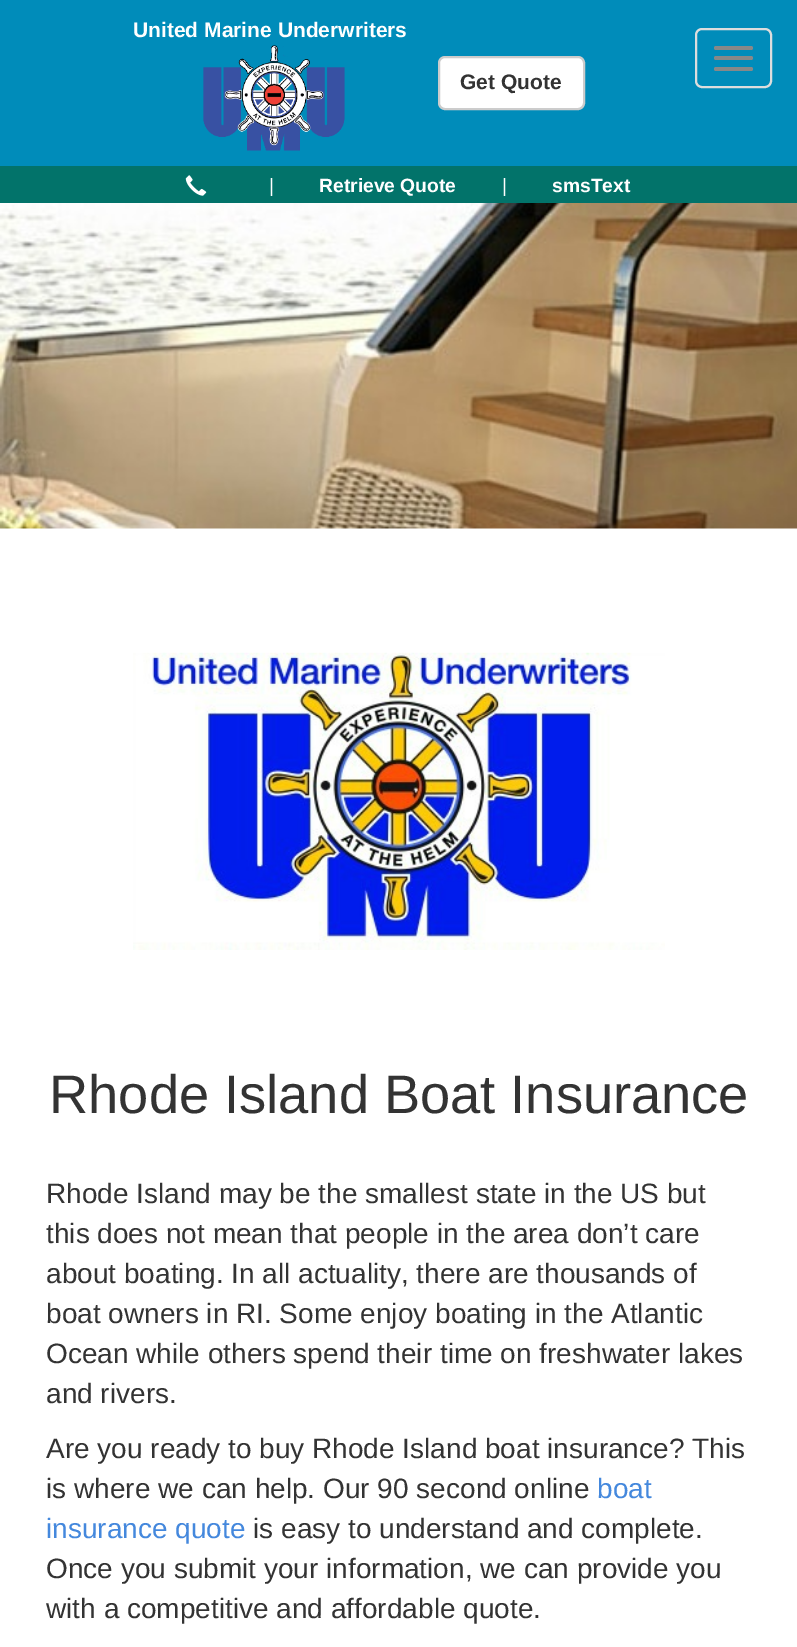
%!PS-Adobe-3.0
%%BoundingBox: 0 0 797 1647
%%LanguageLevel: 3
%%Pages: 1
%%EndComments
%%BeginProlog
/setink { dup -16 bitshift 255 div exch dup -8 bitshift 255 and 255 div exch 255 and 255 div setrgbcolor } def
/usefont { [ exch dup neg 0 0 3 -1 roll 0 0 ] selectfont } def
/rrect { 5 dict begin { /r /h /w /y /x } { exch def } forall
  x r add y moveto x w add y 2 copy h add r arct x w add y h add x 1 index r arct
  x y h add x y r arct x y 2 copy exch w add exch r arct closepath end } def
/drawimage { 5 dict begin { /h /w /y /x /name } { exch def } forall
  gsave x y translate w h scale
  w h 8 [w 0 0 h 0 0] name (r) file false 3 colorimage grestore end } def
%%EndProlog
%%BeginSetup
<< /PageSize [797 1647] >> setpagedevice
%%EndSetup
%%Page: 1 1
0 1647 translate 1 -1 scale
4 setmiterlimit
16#FFFFFF setink
0 0 797 1647 rectfill
16#008CBA setink
0 0 797 166 rectfill
/LiberationSans-Bold 21 usefont
16#FFFFFF setink
133 37 moveto (United Marine Underwriters) show
(img1.raw) 203 45 142 106 drawimage
439 57 145 52 6 rrect gsave fill grestore
16#CCCCCC setink
2 setlinewidth
stroke
16#333333 setink
460 89 moveto (Get Quote) show
16#DDDDDD setink
696 29 75 58 6 rrect stroke
16#888888 setink
714 46 39 4 2 rrect fill
714 56 39 4 2 rrect fill
714 67 39 4 2 rrect fill
16#02736A setink
0 166 797 37 rectfill
(img2.raw) 185 175 22 21 drawimage
/LiberationSans-Regular 19.25 usefont
16#FFFFFF setink
269 192 moveto (|) show
/LiberationSans-Bold 19.25 usefont
319 192 moveto (Retrieve Quote) show
/LiberationSans-Regular 19.25 usefont
502 192 moveto (|) show
/LiberationSans-Bold 19.25 usefont
552 192 moveto (smsText) show
(img3.raw) 0 203 797 326 drawimage
(img4.raw) 133 652 532 298 drawimage
/LiberationSans-Regular 54.25 usefont
16#333333 setink
49 1113 moveto (Rhode Island Boat Insurance) show
/LiberationSans-Regular 28 usefont
[
    [(Rhode Island may be the smallest state in the US but) 46 1203]
    [(this does not mean that people in the area don’t care) 46 1243]
    [(about boating. In all actuality, there are thousands of) 46 1283]
    [(boat owners in RI. Some enjoy boating in the Atlantic) 46 1323]
    [(Ocean while others spend their time on freshwater lakes) 46 1363]
    [(and rivers.) 46 1403]
    [(Are you ready to buy Rhode Island boat insurance? This) 46 1458]
    [(is where we can help. Our 90 second online) 46 1498]
] { aload pop moveto show } forall
16#4488DD setink
597 1498 moveto (boat) show
46 1538 moveto (insurance quote) show
16#333333 setink
[
    [(is easy to understand and complete.) 253 1538]
    [(Once you submit your information, we can provide you) 46 1578]
    [(with a competitive and affordable quote.) 46 1618]
] { aload pop moveto show } forall
showpage
%%EOF
